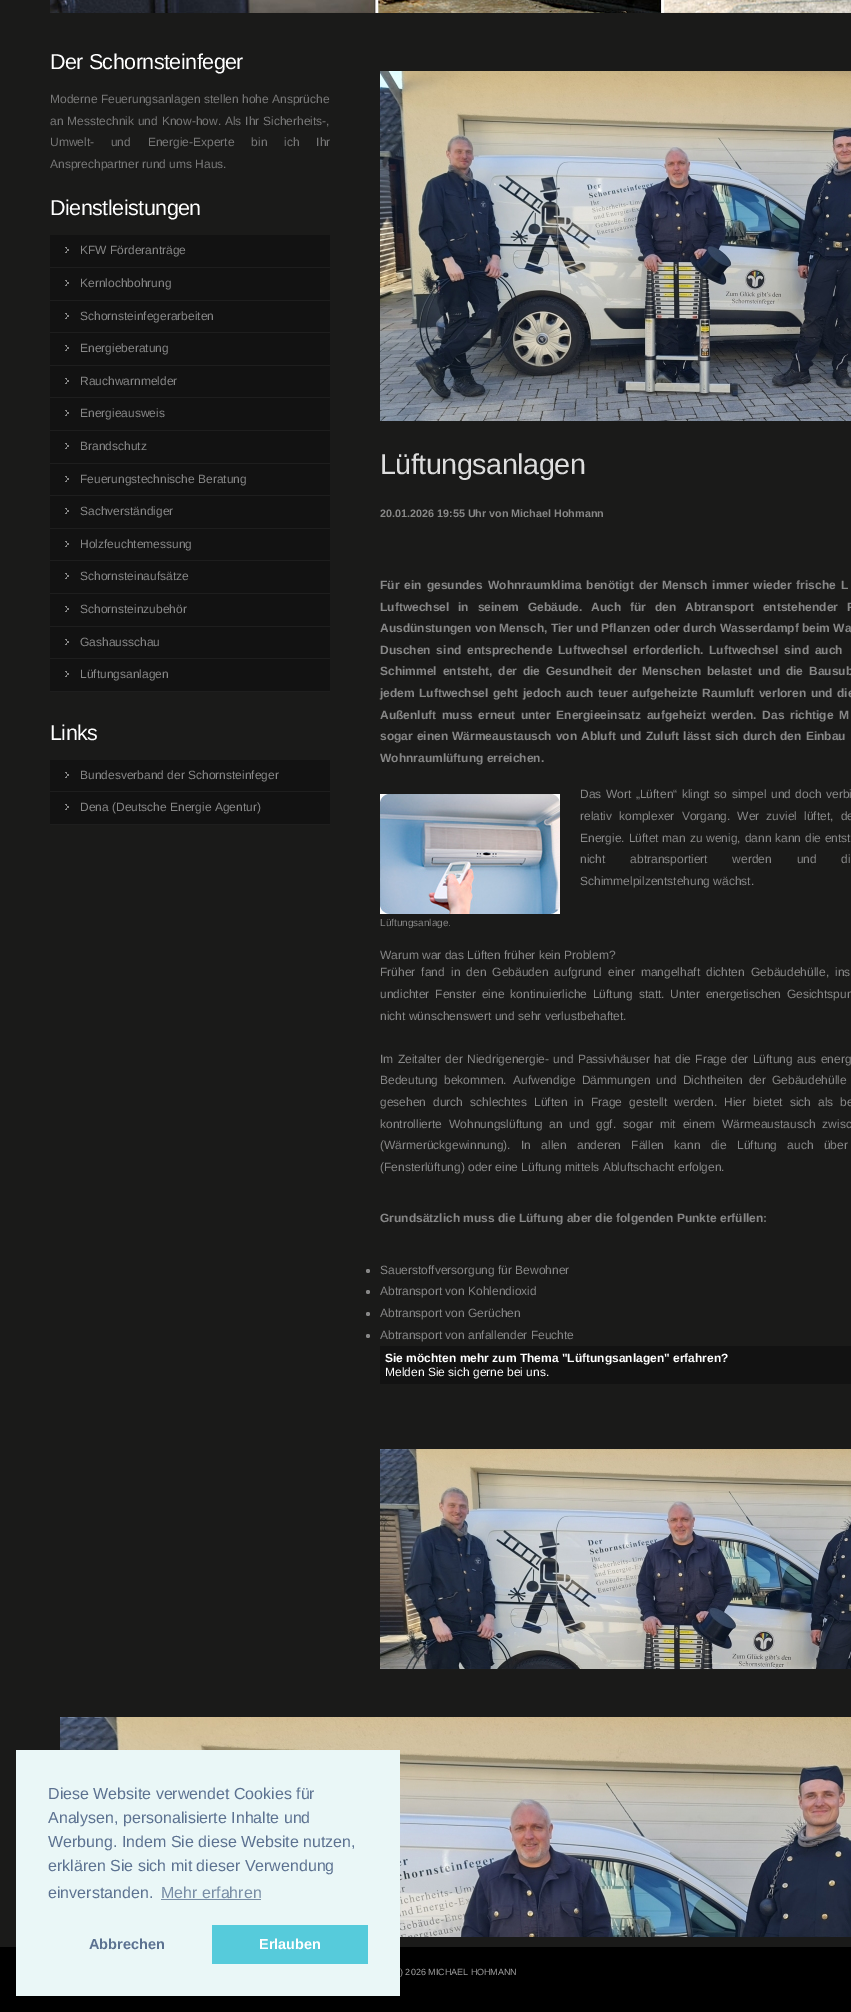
%!PS-Adobe-3.0
%%BoundingBox: 0 0 851 2012
%%LanguageLevel: 3
%%Pages: 1
%%EndComments
%%BeginProlog
/setink { dup -16 bitshift 255 div exch dup -8 bitshift 255 and 255 div exch 255 and 255 div setrgbcolor } def
/usefont { [ exch dup neg 0 0 3 -1 roll 0 0 ] selectfont } def
/disc { newpath 0 360 arc closepath } def
/drawimage { 5 dict begin { /h /w /y /x /name } { exch def } forall
  gsave x y translate w h scale
  w h 8 [w 0 0 h 0 0] name (r) file false 3 colorimage grestore end } def
%%EndProlog
%%BeginSetup
<< /PageSize [851 2012] >> setpagedevice
%%EndSetup
%%Page: 1 1
0 2012 translate 1 -1 scale
4 setmiterlimit
16#1A1A19 setink
0 0 851 2012 rectfill
(img1.raw) 50 0 801 13 drawimage
/LiberationSans-Regular 21.5 usefont
16#FFFFFF setink
50 69 moveto -0.5 0 (Der Schornsteinfeger) ashow
/LiberationSans-Regular 12 usefont
16#787878 setink
50 103 moveto (Moderne Feuerungsanlagen stellen hohe Ansprüche) show
50 125 moveto 0.5 0 32 (an Messtechnik und Know-how. Als Ihr Sicherheits-,) widthshow
50 146 moveto 13.5 0 32 (Umwelt- und Energie-Experte bin ich Ihr) widthshow
50 168 moveto (Ansprechpartner rund ums Haus.) show
/LiberationSans-Regular 21.5 usefont
16#FFFFFF setink
50 215 moveto -0.5 0 (Dienstleistungen) ashow
16#121212 setink
50 235 280 32 rectfill
16#1E1E1E setink
50 267 280 1 rectfill
(img2.raw) 65 247 4 6 drawimage
/LiberationSans-Regular 12 usefont
16#878787 setink
80 254 moveto (KFW Förderanträge) show
16#121212 setink
50 268 280 32 rectfill
16#1E1E1E setink
50 300 280 1 rectfill
(img2.raw) 65 280 4 6 drawimage
16#878787 setink
80 287 moveto (Kernlochbohrung) show
16#121212 setink
50 301 280 31 rectfill
16#1E1E1E setink
50 332 280 1 rectfill
(img2.raw) 65 313 4 6 drawimage
16#878787 setink
80 320 moveto (Schornsteinfegerarbeiten) show
16#121212 setink
50 333 280 32 rectfill
16#1E1E1E setink
50 365 280 1 rectfill
(img2.raw) 65 345 4 6 drawimage
16#878787 setink
80 352 moveto (Energieberatung) show
16#121212 setink
50 366 280 31 rectfill
16#1E1E1E setink
50 397 280 1 rectfill
(img2.raw) 65 378 4 6 drawimage
16#878787 setink
80 385 moveto (Rauchwarnmelder) show
16#121212 setink
50 398 280 32 rectfill
16#1E1E1E setink
50 430 280 1 rectfill
(img2.raw) 65 410 4 6 drawimage
16#878787 setink
80 417 moveto (Energieausweis) show
16#121212 setink
50 431 280 32 rectfill
16#1E1E1E setink
50 463 280 1 rectfill
(img2.raw) 65 443 4 6 drawimage
16#878787 setink
80 450 moveto (Brandschutz) show
16#121212 setink
50 464 280 31 rectfill
16#1E1E1E setink
50 495 280 1 rectfill
(img2.raw) 65 476 4 6 drawimage
16#878787 setink
80 483 moveto (Feuerungstechnische Beratung) show
16#121212 setink
50 496 280 32 rectfill
16#1E1E1E setink
50 528 280 1 rectfill
(img2.raw) 65 508 4 6 drawimage
16#878787 setink
80 515 moveto (Sachverständiger) show
16#121212 setink
50 529 280 31 rectfill
16#1E1E1E setink
50 560 280 1 rectfill
(img2.raw) 65 541 4 6 drawimage
16#878787 setink
80 548 moveto (Holzfeuchtemessung) show
16#121212 setink
50 561 280 32 rectfill
16#1E1E1E setink
50 593 280 1 rectfill
(img2.raw) 65 573 4 6 drawimage
16#878787 setink
80 580 moveto (Schornsteinaufsätze) show
16#121212 setink
50 594 280 32 rectfill
16#1E1E1E setink
50 626 280 1 rectfill
(img2.raw) 65 606 4 6 drawimage
16#878787 setink
80 613 moveto (Schornsteinzubehör) show
16#121212 setink
50 627 280 31 rectfill
16#1E1E1E setink
50 658 280 1 rectfill
(img2.raw) 65 639 4 6 drawimage
16#878787 setink
80 646 moveto (Gashausschau) show
16#121212 setink
50 659 280 32 rectfill
16#1E1E1E setink
50 691 280 1 rectfill
(img2.raw) 65 671 4 6 drawimage
16#878787 setink
80 678 moveto (Lüftungsanlagen) show
/LiberationSans-Regular 21.5 usefont
16#FFFFFF setink
50 740 moveto -0.5 0 (Links) ashow
16#121212 setink
50 760 280 31 rectfill
16#1E1E1E setink
50 791 280 1 rectfill
(img2.raw) 65 772 4 6 drawimage
/LiberationSans-Regular 12 usefont
16#878787 setink
80 779 moveto (Bundesverband der Schornsteinfeger) show
16#121212 setink
50 792 280 32 rectfill
16#1E1E1E setink
50 824 280 1 rectfill
(img2.raw) 65 804 4 6 drawimage
16#878787 setink
80 811 moveto (Dena \(Deutsche Energie Agentur\)) show
(img3.raw) 380 71 471 350 drawimage
/LiberationSans-Regular 28.75 usefont
16#DDDDDD setink
380 474 moveto -0.5 0 (Lüftungsanlagen) ashow
/LiberationSans-Bold 10.8 usefont
16#878787 setink
380 517 moveto (20.01.2026 19:55 Uhr von Michael Hohmann) show
/LiberationSans-Bold 12 usefont
380 589 moveto 1.75 0 32 (Für ein gesundes Wohnraumklima benötigt der Mensch immer wieder frische L) widthshow
380 611 moveto 5.5 0 32 (Luftwechsel in seinem Gebäude. Auch für den Abtransport entstehender F) widthshow
380 632 moveto (Ausdünstungen von Mensch, Tier und Pflanzen oder durch Wasserdampf beim Wa) show
380 654 moveto 2.5 0 32 (Duschen sind entsprechende Luftwechsel erforderlich. Luftwechsel sind auch) widthshow
380 675 moveto 2.5 0 32 (Schimmel entsteht, der die Gesundheit der Menschen belastet und die Bausub) widthshow
380 697 moveto 1.1 0 32 (jedem Luftwechsel geht jedoch auch teuer aufgeheizte Raumluft verloren und die) widthshow
380 719 moveto 2.25 0 32 (Außenluft muss erneut unter Energieeinsatz aufgeheizt werden. Das richtige M) widthshow
380 740 moveto 0.75 0 32 (sogar einen Wärmeaustausch von Abluft und Zuluft lässt sich durch den Einbau) widthshow
380 762 moveto (Wohnraumlüftung erreichen.) show
/LiberationSans-Regular 12 usefont
580 798 moveto 1.25 0 32 (Das Wort „Lüften“ klingt so simpel und doch verbi) widthshow
580 820 moveto 3.75 0 32 (relativ komplexer Vorgang. Wer zuviel lüftet, de) widthshow
580 842 moveto 0.5 0 32 (Energie. Lüftet man zu wenig, dann kann die entst) widthshow
580 863 moveto 21.5 0 32 (nicht abtransportiert werden und di) widthshow
580 885 moveto (Schimmelpilzentstehung wächst.) show
(img4.raw) 380 794 180 120 drawimage
/LiberationSans-Regular 10 usefont
380 926 moveto (Lüftungsanlage.) show
/LiberationSans-Regular 12 usefont
380 959 moveto (Warum war das Lüften früher kein Problem?) show
380 976 moveto 2.75 0 32 (Früher fand in den Gebäuden aufgrund einer mangelhaft dichten Gebäudehülle, ins) widthshow
380 998 moveto 2.5 0 32 (undichter Fenster eine kontinuierliche Lüftung statt. Unter energetischen Gesichtspun) widthshow
380 1020 moveto (nicht wünschenswert und sehr verlustbehaftet.) show
380 1063 moveto 1 0 32 (Im Zeitalter der Niedrigenergie- und Passivhäuser hat die Frage der Lüftung aus energ) widthshow
380 1084 moveto 2.75 0 32 (Bedeutung bekommen. Aufwendige Dämmungen und Dichtheiten der Gebäudehülle) widthshow
380 1106 moveto 3.75 0 32 (gesehen durch schlechtes Lüften in Frage gestellt werden. Hier bietet sich als be) widthshow
380 1128 moveto 3.5 0 32 (kontrollierte Wohnungslüftung an und ggf. sogar mit einem Wärmeaustausch zwisc) widthshow
380 1149 moveto (\(Wärmerückgewinnung\).) show
521 1149 moveto 7 0 32 (In allen anderen Fällen kann die Lüftung auch über) widthshow
380 1171 moveto (\(Fensterlüftung\) oder eine Lüftung mittels Abluftschacht erfolgen.) show
/LiberationSans-Bold 12 usefont
380 1222 moveto (Grundsätzlich muss die Lüftung aber die folgenden Punkte erfüllen:) show
368 1271 2 disc fill
/LiberationSans-Regular 12 usefont
380 1274 moveto (Sauerstoffversorgung für Bewohner) show
368 1292 2 disc fill
380 1295 moveto (Abtransport von Kohlendioxid) show
368 1314 2 disc fill
380 1317 moveto (Abtransport von Gerüchen) show
368 1336 2 disc fill
380 1339 moveto (Abtransport von anfallender Feuchte) show
16#121212 setink
380 1346 471 38 rectfill
/LiberationSans-Bold 12 usefont
16#FFFFFF setink
385 1362 moveto (Sie möchten mehr zum Thema "Lüftungsanlagen" erfahren?) show
/LiberationSans-Regular 12 usefont
385 1376 moveto (Melden Sie sich gerne bei uns.) show
(img5.raw) 380 1449 471 220 drawimage
(img6.raw) 60 1717 791 220 drawimage
16#000000 setink
0 1947 851 65 rectfill
/LiberationSans-Regular 9 usefont
16#A0A0A0 setink
400 1975 moveto (\) 2026 MICHAEL HOHMANN) show
16#EAF7F7 setink
16 1750 384 246 rectfill
/LiberationSans-Regular 16 usefont
16#5C7291 setink
[
    [(Diese Website verwendet Cookies für) 48 1799]
    [(Analysen, personalisierte Inhalte und) 48 1823]
    [(Werbung. Indem Sie diese Website nutzen,) 48 1847]
    [(erklären Sie sich mit dieser Verwendung) 48 1871]
    [(einverstanden.) 48 1898]
] { aload pop moveto show } forall
16#788DA5 setink
161 1898 moveto (Mehr erfahren) show
161 1899 100 1 rectfill
/LiberationSans-Bold 14.5 usefont
16#5C7291 setink
89 1949 moveto (Abbrechen) show
16#56CBDB setink
212 1925 156 39 rectfill
16#FFFFFF setink
259 1949 moveto (Erlauben) show
showpage
%%EOF
